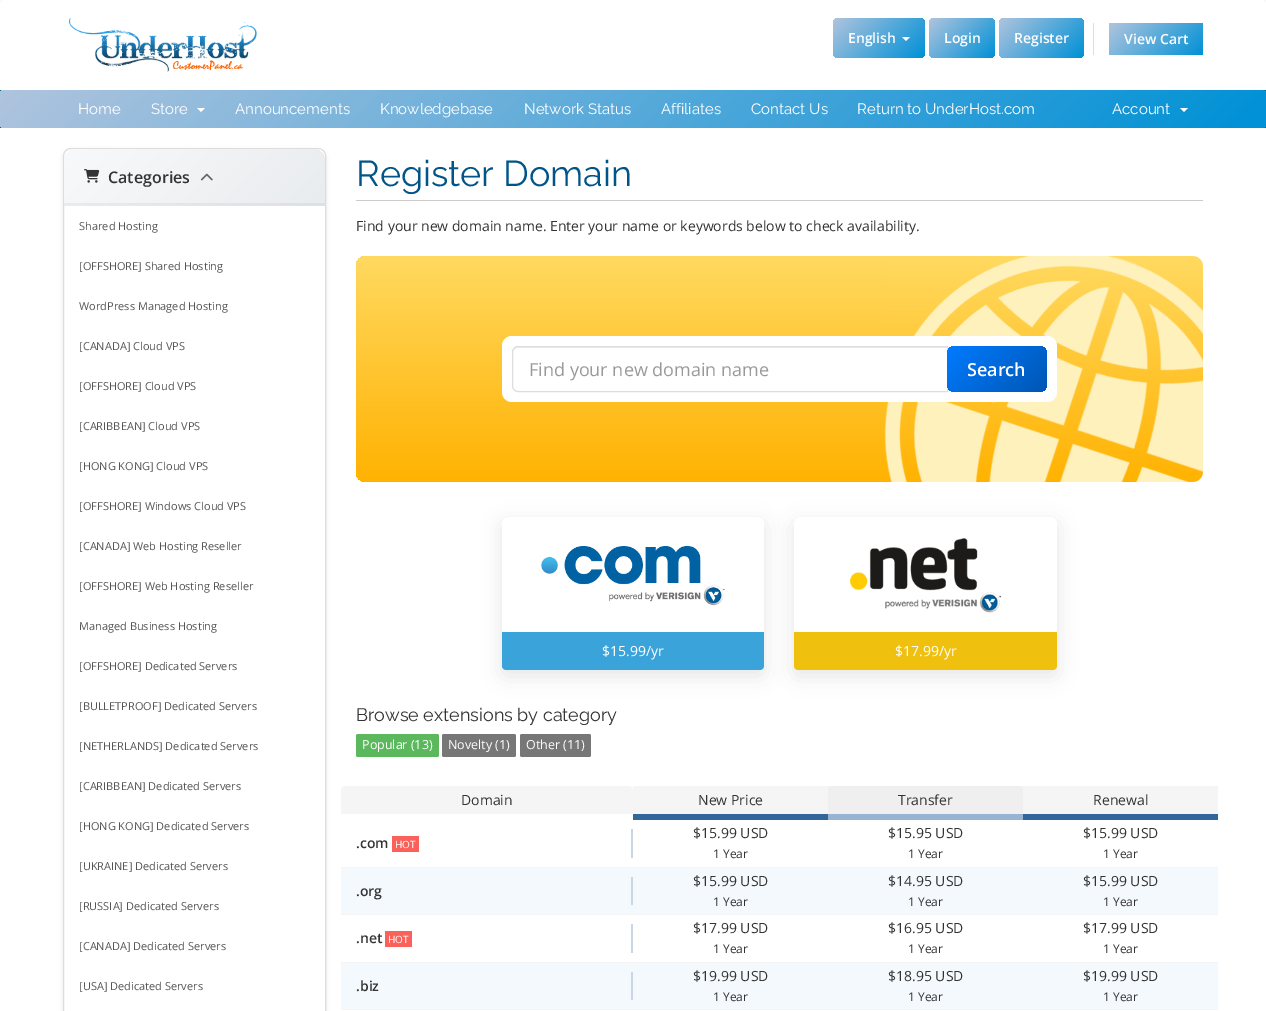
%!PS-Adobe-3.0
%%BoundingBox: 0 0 1266 1011
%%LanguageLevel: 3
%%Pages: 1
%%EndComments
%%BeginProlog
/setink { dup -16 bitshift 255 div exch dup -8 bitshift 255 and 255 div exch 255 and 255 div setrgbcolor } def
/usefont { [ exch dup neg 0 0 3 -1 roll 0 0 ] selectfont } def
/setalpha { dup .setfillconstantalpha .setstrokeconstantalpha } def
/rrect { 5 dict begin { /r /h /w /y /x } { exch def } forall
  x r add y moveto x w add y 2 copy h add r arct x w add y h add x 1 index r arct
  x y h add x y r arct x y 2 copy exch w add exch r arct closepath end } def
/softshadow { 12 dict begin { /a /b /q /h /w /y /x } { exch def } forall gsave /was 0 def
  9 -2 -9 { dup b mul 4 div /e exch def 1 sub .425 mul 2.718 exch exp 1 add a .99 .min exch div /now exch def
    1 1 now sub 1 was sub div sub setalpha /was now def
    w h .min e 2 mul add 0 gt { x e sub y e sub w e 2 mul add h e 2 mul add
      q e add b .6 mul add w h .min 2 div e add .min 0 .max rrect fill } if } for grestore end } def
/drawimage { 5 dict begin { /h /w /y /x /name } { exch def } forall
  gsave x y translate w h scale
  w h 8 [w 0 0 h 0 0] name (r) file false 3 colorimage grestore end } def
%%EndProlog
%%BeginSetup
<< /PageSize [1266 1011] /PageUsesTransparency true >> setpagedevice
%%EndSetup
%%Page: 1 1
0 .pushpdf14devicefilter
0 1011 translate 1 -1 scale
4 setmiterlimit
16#F8F8F8 setink
0 0 1266 1011 rectfill
16#FFFFFF setink
5 0 moveto 1261 0 lineto 1264 0 1266 2 1266 5 curveto 1266 90 lineto 0 90 lineto 0 5 lineto 0 2 2 0 5 0 curveto closepath fill
(img1.raw) 69 18 188 54 drawimage
gsave 833 18 92 40 5 rrect clip newpath
<< /ShadingType 2 /ColorSpace /DeviceRGB /Coords [872 -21 1070 177] /Extend [true true] /Function << /FunctionType 3 /Domain [0 1] /Functions [<< /FunctionType 2 /Domain [0 1] /C0 [0.69 0.769 0.871] /C1 [0 0.569 0.839] /N 1 >> << /FunctionType 2 /Domain [0 1] /C0 [0 0.569 0.839] /C1 [0.263 0.298 0.773] /N 1 >> << /FunctionType 2 /Domain [0 1] /C0 [0.263 0.298 0.773] /C1 [0.529 0.659 0.769] /N 1 >>] /Bounds [0.33 0.67] /Encode [0 1 0 1 0 1] >> >> shfill grestore
/OpenSans-SemiBold 14 usefont
848 43 moveto (English) show
902 37 moveto 910 37 lineto 906 41 lineto closepath fill
gsave 929 18 66 40 5 rrect clip newpath
<< /ShadingType 2 /ColorSpace /DeviceRGB /Coords [949 -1.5 1108 158] /Extend [true true] /Function << /FunctionType 3 /Domain [0 1] /Functions [<< /FunctionType 2 /Domain [0 1] /C0 [0.69 0.769 0.871] /C1 [0 0.569 0.839] /N 1 >> << /FunctionType 2 /Domain [0 1] /C0 [0 0.569 0.839] /C1 [0.263 0.298 0.773] /N 1 >> << /FunctionType 2 /Domain [0 1] /C0 [0.263 0.298 0.773] /C1 [0.529 0.659 0.769] /N 1 >>] /Bounds [0.33 0.67] /Encode [0 1 0 1 0 1] >> >> shfill grestore
944 43 moveto (Login) show
gsave 999 18 85 40 5 rrect clip newpath
<< /ShadingType 2 /ColorSpace /DeviceRGB /Coords [1033 -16 1220 172] /Extend [true true] /Function << /FunctionType 3 /Domain [0 1] /Functions [<< /FunctionType 2 /Domain [0 1] /C0 [0.69 0.769 0.871] /C1 [0 0.569 0.839] /N 1 >> << /FunctionType 2 /Domain [0 1] /C0 [0 0.569 0.839] /C1 [0.263 0.298 0.773] /N 1 >> << /FunctionType 2 /Domain [0 1] /C0 [0.263 0.298 0.773] /C1 [0.529 0.659 0.769] /N 1 >>] /Bounds [0.33 0.67] /Encode [0 1 0 1 0 1] >> >> shfill grestore
1014 43 moveto (Register) show
16#DDDDDD setink
1093 23 1 32 rectfill
gsave 1109 23 94 32 3 rrect clip newpath
<< /ShadingType 2 /ColorSpace /DeviceRGB /Coords [1156 -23 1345 166] /Extend [true true] /Function << /FunctionType 3 /Domain [0 1] /Functions [<< /FunctionType 2 /Domain [0 1] /C0 [0.69 0.769 0.871] /C1 [0 0.569 0.839] /N 1 >> << /FunctionType 2 /Domain [0 1] /C0 [0 0.569 0.839] /C1 [0.263 0.298 0.773] /N 1 >> << /FunctionType 2 /Domain [0 1] /C0 [0.263 0.298 0.773] /C1 [0.529 0.659 0.769] /N 1 >>] /Bounds [0.33 0.67] /Encode [0 1 0 1 0 1] >> >> shfill grestore
16#FFFFFF setink
1124 44 moveto (View Cart) show
16#006687 setink
0 90 1266 38 rectfill
gsave 0 90 1266 38 4 rrect clip newpath
<< /ShadingType 2 /ColorSpace /DeviceRGB /Coords [921 -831 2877 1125] /Extend [true true] /Function << /FunctionType 3 /Domain [0 1] /Functions [<< /FunctionType 2 /Domain [0 1] /C0 [0.69 0.769 0.871] /C1 [0 0.569 0.839] /N 1 >> << /FunctionType 2 /Domain [0 1] /C0 [0 0.569 0.839] /C1 [0.263 0.298 0.773] /N 1 >> << /FunctionType 2 /Domain [0 1] /C0 [0.263 0.298 0.773] /C1 [0.529 0.659 0.769] /N 1 >>] /Bounds [0.33 0.67] /Encode [0 1 0 1 0 1] >> >> shfill grestore
/Raleway-Regular 15 usefont
16#FFFFFF setink
78 114 moveto (Home) show
151 114 moveto (Store) show
197 108 moveto 205 108 lineto 201 112 lineto closepath fill
[
    [(Announcements) 235 114]
    [(Knowledgebase) 380 114]
    [(Network Status) 524 114]
    [(Affiliates) 661 114]
    [(Contact Us) 751 114]
    [(Return to UnderHost.com) 857 114]
    [(Account) 1112 114]
] { aload pop moveto show } forall
1180 108 moveto 1188 108 lineto 1184 112 lineto closepath fill
0 128 1266 883 rectfill
16#000000 setink
63 150 263 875 8 2 0.1 softshadow
16#FFFFFF setink
63.5 148.5 262 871 7.5 rrect gsave fill grestore
16#DDDDDD setink
stroke
gsave 76 149 moveto 313 149 lineto 319.5 149 325 154.5 325 161 curveto 325 205 lineto 64 205 lineto 64 161 lineto 64 154.5 69.5 149 76 149 curveto closepath clip newpath
<< /ShadingType 2 /ColorSpace /DeviceRGB /Coords [115 98 274 256] /Extend [true true] /Function << /FunctionType 2 /Domain [0 1] /C0 [0.973 0.976 0.98] /C1 [0.914 0.925 0.937] /N 1 >> >> shfill grestore
gsave 64 203 moveto 325 203 lineto 325 205 lineto 64 205 lineto closepath clip newpath
<< /ShadingType 2 /ColorSpace /DeviceRGB /Coords [115 98 274 256] /Extend [true true] /Function << /FunctionType 2 /Domain [0 1] /C0 [0.925 0.929 0.933] /C1 [0.867 0.878 0.89] /N 1 >> >> shfill grestore
gsave 64 205 moveto 325 205 lineto 325 206 lineto 64 206 lineto closepath clip newpath
<< /ShadingType 2 /ColorSpace /DeviceRGB /Coords [115 154 274 312] /Extend [true true] /Function << /FunctionType 2 /Domain [0 1] /C0 [0.925 0.929 0.933] /C1 [0.867 0.878 0.89] /N 1 >> >> shfill grestore
(img2.raw) 84 169 16 14 drawimage
/OpenSans-SemiBold 16 usefont
16#333333 setink
108 183 moveto (Categories) show
(img3.raw) 200 173 13 8 drawimage
/OpenSans-Regular 11 usefont
16#555555 setink
[
    [(Shared Hosting) 79 230]
    [([OFFSHORE] Shared Hosting) 79 270]
    [(WordPress Managed Hosting) 79 310]
    [([CANADA] Cloud VPS) 79 350]
    [([OFFSHORE] Cloud VPS) 79 390]
    [([CARIBBEAN] Cloud VPS) 79 430]
    [([HONG KONG] Cloud VPS) 79 470]
    [([OFFSHORE] Windows Cloud VPS) 79 510]
    [([CANADA] Web Hosting Reseller) 79 550]
    [([OFFSHORE] Web Hosting Reseller) 79 590]
    [(Managed Business Hosting) 79 630]
    [([OFFSHORE] Dedicated Servers) 79 670]
    [([BULLETPROOF] Dedicated Servers) 79 710]
    [([NETHERLANDS] Dedicated Servers) 79 750]
    [([CARIBBEAN] Dedicated Servers) 79 790]
    [([HONG KONG] Dedicated Servers) 79 830]
    [([UKRAINE] Dedicated Servers) 79 870]
    [([RUSSIA] Dedicated Servers) 79 910]
    [([CANADA] Dedicated Servers) 79 950]
    [([USA] Dedicated Servers) 79 990]
] { aload pop moveto show } forall
16#CCCCCC setink
356 200 847 1 rectfill
/Raleway-Regular 36 usefont
16#005588 setink
356 186 moveto (Register Domain) show
/OpenSans-Regular 14 usefont
16#333333 setink
356 231 moveto (Find your new domain name. Enter your name or keywords below to check availability.) show
gsave 356 256 847 226 10 rrect clip newpath
<< /ShadingType 2 /ColorSpace /DeviceRGB /Coords [780 256 780 482] /Extend [true true] /Function << /FunctionType 2 /Domain [0 1] /C0 [1 0.851 0.376] /C1 [1 0.698 0.004] /N 1 >> >> shfill grestore
(img4.raw) 884 256 319 226 drawimage
16#FFFFFF setink
502 336 555 66 10 rrect fill
16#ECECEC setink
518 348 moveto 947 348 lineto 947 347 lineto 518 347 lineto 515 347 513 350 513 353 curveto 513 350 515 348 518 348 curveto closepath fill
16#DDDDDD setink
518 346.5 moveto 947.5 346.5 lineto 947.5 391.5 lineto 518 391.5 lineto 515 391.5 512.5 389 512.5 386 curveto 512.5 352 lineto 512.5 349 515 346.5 518 346.5 curveto closepath stroke
/OpenSans-Regular 18 usefont
16#999999 setink
529 376 moveto (Find your new domain name) show
gsave 947 346 100 46 8 rrect clip newpath
<< /ShadingType 2 /ColorSpace /DeviceRGB /Coords [961 333 1034 406] /Extend [true true] /Function << /FunctionType 2 /Domain [0 1] /C0 [0 0.482 1] /C1 [0 0.337 0.702] /N 1 >> >> shfill grestore
/OpenSans-SemiBold 18 usefont
16#FFFFFF setink
967 376 moveto (Search) show
gsave
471 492 moveto 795 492 lineto 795 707 lineto 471 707 lineto closepath 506 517 moveto 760 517 lineto 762 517 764 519 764 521 curveto 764 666 lineto 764 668 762 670 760 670 curveto 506 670 lineto 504 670 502 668 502 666 curveto 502 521 lineto 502 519 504 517 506 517 curveto closepath eoclip newpath
16#000000 setink
502 523 262 153 4 10 0.1 softshadow
grestore
(img5.raw) 541 546 184 60 drawimage
16#3AA4DA setink
502 632 moveto 764 632 lineto 764 666 lineto 764 668 762 670 760 670 curveto 506 670 lineto 504 670 502 668 502 666 curveto closepath fill
/OpenSans-Regular 14 usefont
16#FFFFFF setink
602 656 moveto ($15.99/yr) show
gsave
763 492 moveto 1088 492 lineto 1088 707 lineto 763 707 lineto closepath 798 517 moveto 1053 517 lineto 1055 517 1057 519 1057 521 curveto 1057 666 lineto 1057 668 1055 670 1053 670 curveto 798 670 lineto 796 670 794 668 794 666 curveto 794 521 lineto 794 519 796 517 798 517 curveto closepath eoclip newpath
16#000000 setink
794 523 263 153 4 10 0.1 softshadow
grestore
(img6.raw) 850 538 151 75 drawimage
16#EFC00E setink
794 632 moveto 1057 632 lineto 1057 666 lineto 1057 668 1055 670 1053 670 curveto 798 670 lineto 796 670 794 668 794 666 curveto closepath fill
16#FFFFFF setink
895 656 moveto ($17.99/yr) show
/Raleway-Regular 18 usefont
16#333333 setink
356 721 moveto (Browse extensions by category) show
16#5CB85C setink
356 734 83 23 2 rrect fill
/OpenSans-Regular 12.5 usefont
16#FFFFFF setink
362 749 moveto (Popular \(13\)) show
16#777777 setink
442 734 74 23 2 rrect fill
16#FFFFFF setink
448 749 moveto (Novelty \(1\)) show
16#777777 setink
520 734 71 23 2 rrect fill
16#FFFFFF setink
526 749 moveto (Other \(11\)) show
16#F5F5F5 setink
345 786 moveto 629 786 lineto 631 786 633 788 633 790 curveto 633 814 lineto 341 814 lineto 341 790 lineto 341 788 343 786 345 786 curveto closepath fill
/OpenSans-Regular 14 usefont
16#333333 setink
461 805 moveto (Domain) show
16#F5F5F5 setink
633 786 585 28 rectfill
16#336699 setink
633 814 195 6 rectfill
16#333333 setink
698 805 moveto (New Price) show
16#EFEFEF setink
832 786 moveto 1019 786 lineto 1021 786 1023 788 1023 790 curveto 1023 820 lineto 828 820 lineto 828 790 lineto 828 788 830 786 832 786 curveto closepath fill
16#97B5D2 setink
828 814 195 6 rectfill
16#333333 setink
898 805 moveto (Transfer) show
16#336699 setink
1023 814 195 6 rectfill
16#333333 setink
1093 805 moveto (Renewal) show
16#F5F5F5 setink
341 867 877 1 rectfill
16#C7D7E6 setink
631 829 2 29 rectfill
/OpenSans-SemiBold 14 usefont
16#333333 setink
356 848 moveto (.com) show
16#F9615A setink
392 836 27 16 rectfill
/OpenSans-Regular 10 usefont
16#FFFFFF setink
395 848 moveto (HOT) show
/OpenSans-Regular 14 usefont
16#333333 setink
693 838 moveto ($15.99 USD) show
/OpenSans-Regular 12 usefont
713 858 moveto (1 Year) show
/OpenSans-Regular 14 usefont
888 838 moveto ($15.95 USD) show
/OpenSans-Regular 12 usefont
908 858 moveto (1 Year) show
/OpenSans-Regular 14 usefont
1083 838 moveto ($15.99 USD) show
/OpenSans-Regular 12 usefont
1103 858 moveto (1 Year) show
[
    [341 868 877 46 16#F3F9FD]
    [341 914 877 1 16#F5F5F5]
    [631 877 2 28 16#C7D7E6]
] { aload pop setink rectfill } forall
/OpenSans-SemiBold 14 usefont
16#333333 setink
356 896 moveto (.org) show
/OpenSans-Regular 14 usefont
693 886 moveto ($15.99 USD) show
/OpenSans-Regular 12 usefont
713 906 moveto (1 Year) show
/OpenSans-Regular 14 usefont
888 886 moveto ($14.95 USD) show
/OpenSans-Regular 12 usefont
908 906 moveto (1 Year) show
/OpenSans-Regular 14 usefont
1083 886 moveto ($15.99 USD) show
/OpenSans-Regular 12 usefont
1103 906 moveto (1 Year) show
16#F5F5F5 setink
341 962 877 1 rectfill
16#C7D7E6 setink
631 924 2 29 rectfill
/OpenSans-SemiBold 14 usefont
16#333333 setink
356 943 moveto (.net) show
16#F9615A setink
385 931 27 16 rectfill
/OpenSans-Regular 10 usefont
16#FFFFFF setink
388 943 moveto (HOT) show
/OpenSans-Regular 14 usefont
16#333333 setink
693 933 moveto ($17.99 USD) show
/OpenSans-Regular 12 usefont
713 953 moveto (1 Year) show
/OpenSans-Regular 14 usefont
888 933 moveto ($16.95 USD) show
/OpenSans-Regular 12 usefont
908 953 moveto (1 Year) show
/OpenSans-Regular 14 usefont
1083 933 moveto ($17.99 USD) show
/OpenSans-Regular 12 usefont
1103 953 moveto (1 Year) show
[
    [341 963 877 46 16#F3F9FD]
    [341 1009 877 1 16#F5F5F5]
    [631 972 2 28 16#C7D7E6]
] { aload pop setink rectfill } forall
/OpenSans-SemiBold 14 usefont
16#333333 setink
356 991 moveto (.biz) show
/OpenSans-Regular 14 usefont
693 981 moveto ($19.99 USD) show
/OpenSans-Regular 12 usefont
713 1001 moveto (1 Year) show
/OpenSans-Regular 14 usefont
888 981 moveto ($18.95 USD) show
/OpenSans-Regular 12 usefont
908 1001 moveto (1 Year) show
/OpenSans-Regular 14 usefont
1083 981 moveto ($19.99 USD) show
/OpenSans-Regular 12 usefont
1103 1001 moveto (1 Year) show
.poppdf14devicefilter showpage
%%EOF
